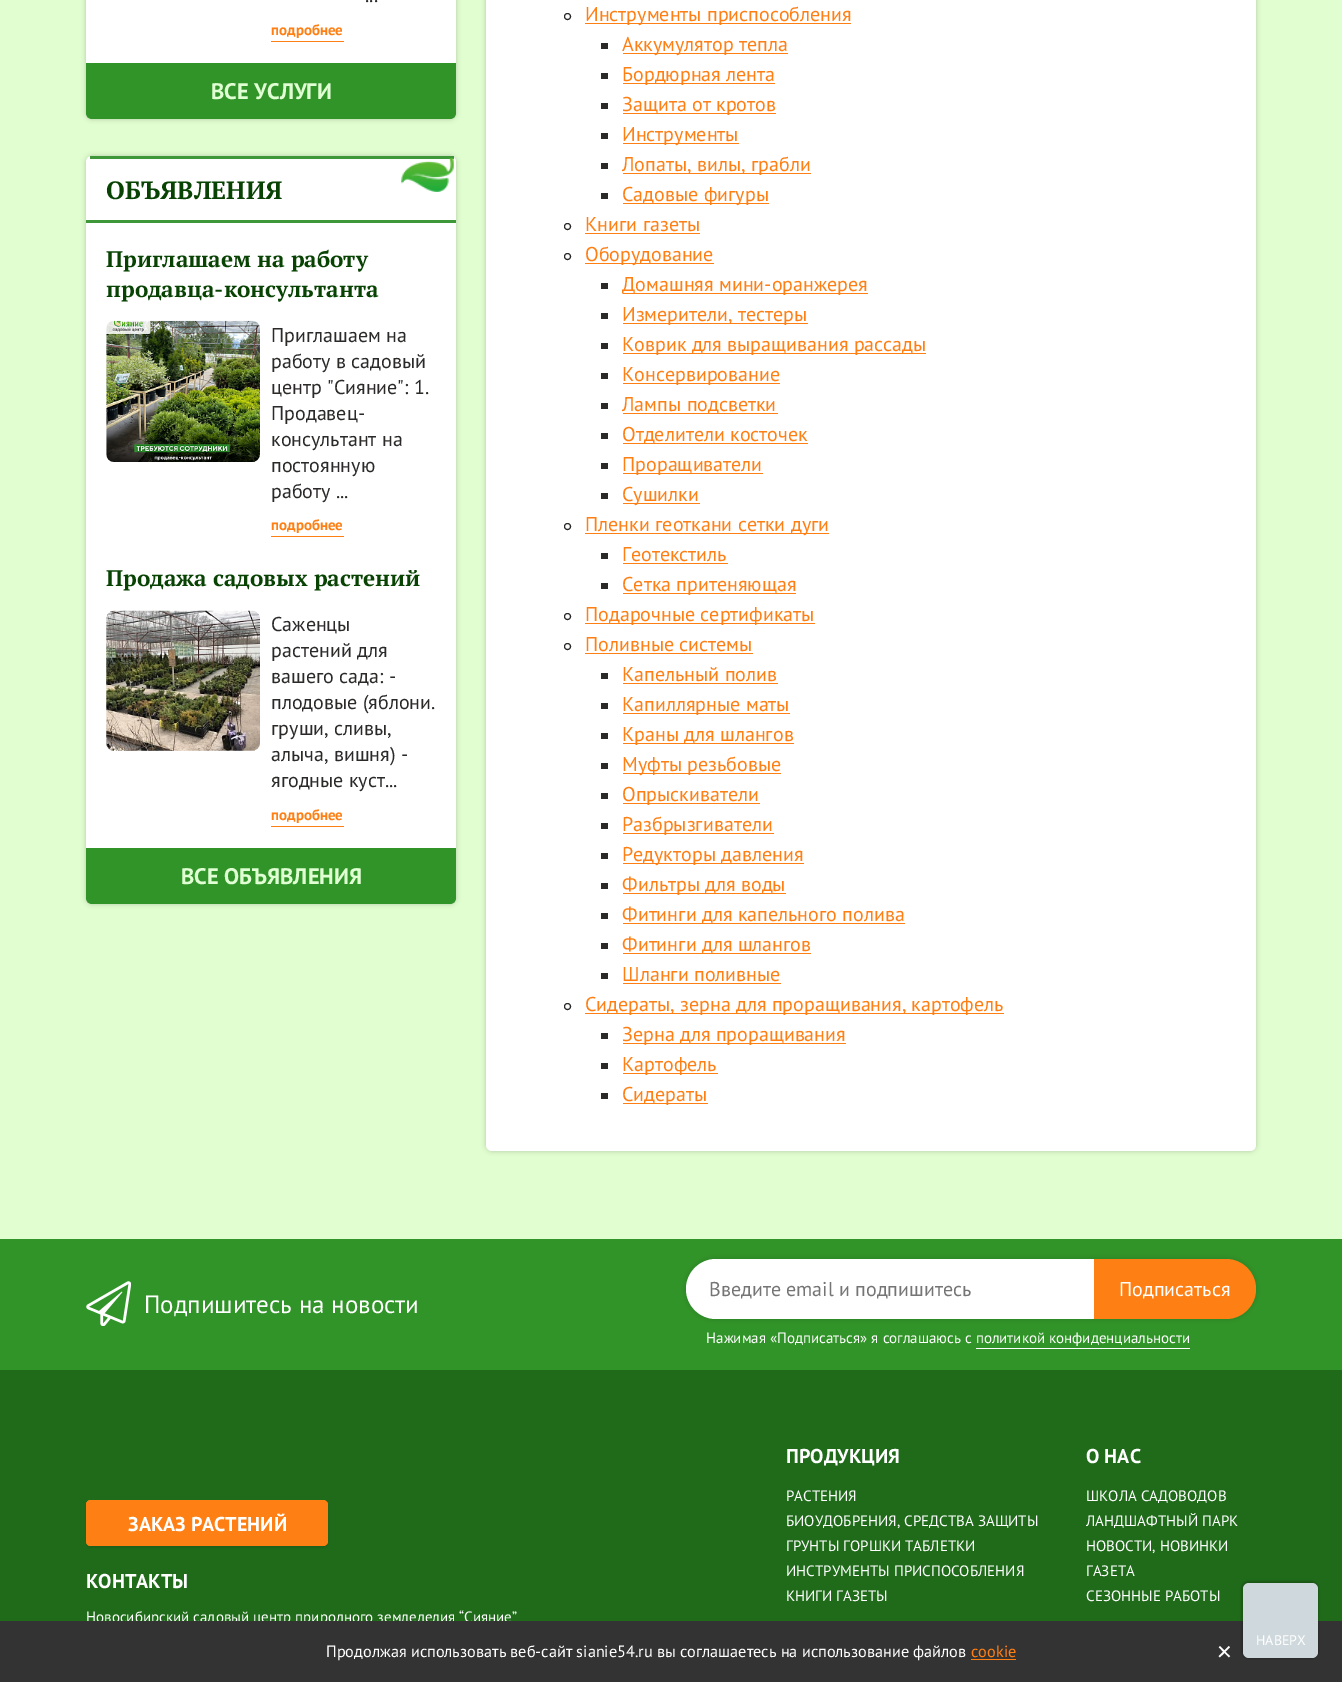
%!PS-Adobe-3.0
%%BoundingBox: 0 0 1342 1682
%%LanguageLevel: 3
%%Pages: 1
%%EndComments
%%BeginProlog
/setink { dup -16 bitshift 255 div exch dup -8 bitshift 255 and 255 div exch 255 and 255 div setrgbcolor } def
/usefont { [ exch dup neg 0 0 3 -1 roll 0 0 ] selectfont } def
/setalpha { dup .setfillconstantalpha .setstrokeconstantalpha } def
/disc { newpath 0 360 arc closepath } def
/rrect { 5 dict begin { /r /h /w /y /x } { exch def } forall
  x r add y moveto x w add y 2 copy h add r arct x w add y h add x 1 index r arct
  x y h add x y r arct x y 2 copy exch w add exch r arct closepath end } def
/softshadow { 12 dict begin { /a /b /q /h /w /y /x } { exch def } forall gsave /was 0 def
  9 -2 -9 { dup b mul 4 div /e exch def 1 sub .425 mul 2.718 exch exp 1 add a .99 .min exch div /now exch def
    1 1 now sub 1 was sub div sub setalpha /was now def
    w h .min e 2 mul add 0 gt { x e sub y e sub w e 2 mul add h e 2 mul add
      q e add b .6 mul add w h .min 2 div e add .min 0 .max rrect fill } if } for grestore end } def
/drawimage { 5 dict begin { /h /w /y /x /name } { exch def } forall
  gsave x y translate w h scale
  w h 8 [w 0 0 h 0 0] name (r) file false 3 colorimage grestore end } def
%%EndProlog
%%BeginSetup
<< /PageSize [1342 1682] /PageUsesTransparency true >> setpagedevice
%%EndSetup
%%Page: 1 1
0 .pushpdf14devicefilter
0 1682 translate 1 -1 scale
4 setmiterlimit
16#E1FED0 setink
0 0 1342 1682 rectfill
16#000000 setink
86 -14 370 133 6 2.5 0.2 softshadow
16#FFFFFF setink
86 -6 370 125 6 rrect fill
/PTSans-Regular 20 usefont
16#2B2A29 setink
365 2 moveto (...) show
16#FE7F14 setink
271 41 73 1 rectfill
/PTSans-Bold 15 usefont
271 35 moveto (подробнее) show
16#309429 setink
86 63 moveto 456 63 lineto 456 113 lineto 456 116.5 453.5 119 450 119 curveto 92 119 lineto 88.5 119 86 116.5 86 113 curveto closepath fill
/PTSans-Bold 22.5 usefont
16#E0FFD3 setink
211 99 moveto (ВСЕ УСЛУГИ) show
16#000000 setink
86 156 370 748 6 2.5 0.2 softshadow
16#FFFFFF setink
86 156 370 748 6 rrect fill
16#3E9839 setink
90 156 364 3 rectfill
86 220 370 3 rectfill
/PTSerif-Bold 25 usefont
16#084304 setink
106 199 moveto (ОБЪЯВЛЕНИЯ) show
(img1.raw) 401 158 53 34 drawimage
/PTSerif-Bold 22.5 usefont
106 267 moveto (Приглашаем на работу) show
106 297 moveto (продавца-консультанта) show
(img2.raw) 106 320 154 142 drawimage
/PTSans-Regular 20 usefont
16#2B2A29 setink
[
    [(Приглашаем на) 271 342]
    [(работу в садовый) 271 368]
    [(центр "Сияние": 1.) 271 394]
    [(Продавец-) 271 420]
    [(консультант на) 271 446]
    [(постоянную) 271 472]
    [(работу ...) 271 498]
] { aload pop moveto show } forall
16#FE7F14 setink
271 536 73 1 rectfill
/PTSans-Bold 15 usefont
271 530 moveto (подробнее) show
/PTSerif-Bold 22.5 usefont
16#084304 setink
106 586 moveto (Продажа садовых растений) show
(img3.raw) 106 610 154 141 drawimage
/PTSans-Regular 20 usefont
16#2B2A29 setink
[
    [(Саженцы) 271 631]
    [(растений для) 271 657]
    [(вашего сада: -) 271 683]
    [(плодовые \(яблони.) 271 709]
    [(груши, сливы,) 271 735]
    [(алыча, вишня\) -) 271 761]
    [(ягодные куст...) 271 787]
] { aload pop moveto show } forall
16#FE7F14 setink
271 826 73 1 rectfill
/PTSans-Bold 15 usefont
271 820 moveto (подробнее) show
16#309429 setink
86 848 moveto 456 848 lineto 456 898 lineto 456 901.5 453.5 904 450 904 curveto 92 904 lineto 88.5 904 86 901.5 86 898 curveto closepath fill
/PTSans-Bold 22.5 usefont
16#E0FFD3 setink
181 884 moveto (ВСЕ ОБЪЯВЛЕНИЯ) show
16#000000 setink
486 -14 770 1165 6 2.5 0.2 softshadow
16#FFFFFF setink
486 -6 770 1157 6 rrect fill
16#2B2A29 setink
567.5 16.5 3 disc stroke
16#FE7F14 setink
585 23 266 1 rectfill
/PTSans-Regular 20 usefont
585 21 moveto (Инструменты приспособления) show
16#2B2A29 setink
601 43 7 6 rectfill
16#FE7F14 setink
623 53 165 1 rectfill
622 51 moveto (Аккумулятор тепла) show
16#2B2A29 setink
601 73 7 6 rectfill
16#FE7F14 setink
623 83 152 1 rectfill
622 81 moveto (Бордюрная лента) show
16#2B2A29 setink
601 103 7 6 rectfill
16#FE7F14 setink
623 113 153 1 rectfill
622 111 moveto (Защита от кротов) show
16#2B2A29 setink
601 133 7 6 rectfill
16#FE7F14 setink
623 143 116 1 rectfill
622 141 moveto (Инструменты) show
16#2B2A29 setink
601 163 7 6 rectfill
16#FE7F14 setink
623 173 188 1 rectfill
622 171 moveto (Лопаты, вилы, грабли) show
16#2B2A29 setink
601 193 7 6 rectfill
16#FE7F14 setink
623 203 146 1 rectfill
622 201 moveto (Садовые фигуры) show
16#2B2A29 setink
567.5 226.5 3 disc stroke
16#FE7F14 setink
585 231 moveto (Книги газеты) show
585 233 115 1 rectfill
16#2B2A29 setink
567.5 256.5 3 disc stroke
16#FE7F14 setink
585 263 129 1 rectfill
585 261 moveto (Оборудование) show
16#2B2A29 setink
601 283 7 6 rectfill
16#FE7F14 setink
623 293 245 1 rectfill
622 291 moveto (Домашняя мини-оранжерея) show
16#2B2A29 setink
601 313 7 6 rectfill
16#FE7F14 setink
623 323 185 1 rectfill
622 321 moveto (Измерители, тестеры) show
16#2B2A29 setink
601 343 7 6 rectfill
16#FE7F14 setink
623 353 303 1 rectfill
622 351 moveto (Коврик для выращивания рассады) show
16#2B2A29 setink
601 373 7 6 rectfill
16#FE7F14 setink
623 383 157 1 rectfill
622 381 moveto (Консервирование) show
16#2B2A29 setink
601 403 7 6 rectfill
16#FE7F14 setink
623 413 155 1 rectfill
622 411 moveto (Лампы подсветки) show
16#2B2A29 setink
601 433 7 6 rectfill
16#FE7F14 setink
623 443 185 1 rectfill
622 441 moveto (Отделители косточек) show
16#2B2A29 setink
601 463 7 6 rectfill
16#FE7F14 setink
623 473 140 1 rectfill
622 471 moveto (Проращиватели) show
16#2B2A29 setink
601 493 7 6 rectfill
16#FE7F14 setink
623 503 77 1 rectfill
622 501 moveto (Сушилки) show
16#2B2A29 setink
567.5 526.5 3 disc stroke
16#FE7F14 setink
585 533 244 1 rectfill
585 531 moveto (Пленки геоткани сетки дуги) show
16#2B2A29 setink
601 553 7 6 rectfill
16#FE7F14 setink
622 561 moveto (Геотекстиль) show
[
    [623 563 105 1 16#FE7F14]
    [601 583 7 6 16#2B2A29]
    [623 593 173 1 16#FE7F14]
] { aload pop setink rectfill } forall
622 591 moveto (Сетка притеняющая) show
16#2B2A29 setink
567.5 616.5 3 disc stroke
16#FE7F14 setink
585 623 230 1 rectfill
585 621 moveto (Подарочные сертификаты) show
16#2B2A29 setink
567.5 646.5 3 disc stroke
16#FE7F14 setink
585 651 moveto (Поливные системы) show
585 653 168 1 rectfill
16#2B2A29 setink
601 673 7 6 rectfill
16#FE7F14 setink
622 681 moveto (Капельный полив) show
[
    [623 683 155 1 16#FE7F14]
    [601 703 7 6 16#2B2A29]
    [623 713 167 1 16#FE7F14]
] { aload pop setink rectfill } forall
622 711 moveto (Капиллярные маты) show
16#2B2A29 setink
601 733 7 6 rectfill
16#FE7F14 setink
623 743 171 1 rectfill
622 741 moveto (Краны для шлангов) show
16#2B2A29 setink
601 763 7 6 rectfill
16#FE7F14 setink
623 773 158 1 rectfill
622 771 moveto (Муфты резьбовые) show
16#2B2A29 setink
601 793 7 6 rectfill
16#FE7F14 setink
623 803 137 1 rectfill
622 801 moveto (Опрыскиватели) show
16#2B2A29 setink
601 823 7 6 rectfill
16#FE7F14 setink
623 833 151 1 rectfill
622 831 moveto (Разбрызгиватели) show
16#2B2A29 setink
601 853 7 6 rectfill
16#FE7F14 setink
623 863 181 1 rectfill
622 861 moveto (Редукторы давления) show
16#2B2A29 setink
601 883 7 6 rectfill
16#FE7F14 setink
623 893 163 1 rectfill
622 891 moveto (Фильтры для воды) show
16#2B2A29 setink
601 913 7 6 rectfill
16#FE7F14 setink
623 923 282 1 rectfill
622 921 moveto (Фитинги для капельного полива) show
16#2B2A29 setink
601 943 7 6 rectfill
16#FE7F14 setink
623 953 188 1 rectfill
622 951 moveto (Фитинги для шлангов) show
16#2B2A29 setink
601 973 7 6 rectfill
16#FE7F14 setink
622 981 moveto (Шланги поливные) show
623 983 158 1 rectfill
16#2B2A29 setink
567.5 1006.5 3 disc stroke
16#FE7F14 setink
585 1013 419 1 rectfill
585 1011 moveto (Сидераты, зерна для проращивания, картофель) show
16#2B2A29 setink
601 1033 7 6 rectfill
16#FE7F14 setink
623 1043 223 1 rectfill
622 1041 moveto (Зерна для проращивания) show
16#2B2A29 setink
601 1063 7 6 rectfill
16#FE7F14 setink
623 1073 95 1 rectfill
622 1071 moveto (Картофель) show
16#2B2A29 setink
601 1093 7 6 rectfill
16#FE7F14 setink
623 1103 85 1 rectfill
622 1101 moveto (Сидераты) show
16#319428 setink
0 1239 1342 131 rectfill
(img4.raw) 86 1281 45 45 drawimage
/PTSans-Regular 25 usefont
16#FFFFFF setink
144 1313 moveto (Подпишитесь на новости) show
16#000000 setink
686 1259 570 60 30 2.5 0.15 softshadow
16#FFFFFF setink
716 1259 moveto 1094 1259 lineto 1094 1319 lineto 716 1319 lineto 699.5 1319 686 1305.5 686 1289 curveto 686 1272.5 699.5 1259 716 1259 curveto closepath fill
/PTSans-Regular 20 usefont
16#757575 setink
709 1296 moveto (Введите email и подпишитесь) show
16#FE8014 setink
1094 1259 moveto 1226 1259 lineto 1242.5 1259 1256 1272.5 1256 1289 curveto 1256 1305.5 1242.5 1319 1226 1319 curveto 1094 1319 lineto closepath fill
16#FFFFFF setink
1119 1296 moveto (Подписаться) show
/PTSans-Regular 15 usefont
706 1343 moveto (Нажимая «Подписаться» я соглашаюсь с политикой конфиденциальности) show
976 1348 214 1 rectfill
16#1F6B1A setink
0 1370 1342 251 rectfill
16#222426 setink
86 1501 242 47 5 1 0.15 softshadow
16#FE8014 setink
86 1500 242 46 5 rrect fill
91 1500 moveto 322 1500 lineto 325 1500 328 1502 328 1505 curveto 328 1541 lineto 328 1544 325 1546 322 1546 curveto 91 1546 lineto 88 1546 86 1544 86 1541 curveto 86 1505 lineto 86 1502 88 1500 91 1500 curveto closepath 91 1501 moveto 322 1501 lineto 325 1501 326 1503 326 1505 curveto 326 1541 lineto 326 1544 325 1546 322 1546 curveto 91 1546 lineto 89 1546 88 1544 88 1541 curveto 88 1505 lineto 88 1503 89 1501 91 1501 curveto closepath eofill
/PTSans-Bold 20 usefont
16#FFFFFF setink
128 1531 moveto (ЗАКАЗ РАСТЕНИЙ) show
86 1588 moveto (КОНТАКТЫ) show
/PTSans-Regular 15 usefont
86 1622 moveto (Новосибирский садовый центр природного земледелия “Сияние”) show
/PTSans-Bold 20 usefont
786 1463 moveto (ПРОДУКЦИЯ) show
/PTSans-Regular 15 usefont
[
    [(РАСТЕНИЯ) 786 1501]
    [(БИОУДОБРЕНИЯ, СРЕДСТВА ЗАЩИТЫ) 786 1526]
    [(ГРУНТЫ ГОРШКИ ТАБЛЕТКИ) 786 1551]
    [(ИНСТРУМЕНТЫ ПРИСПОСОБЛЕНИЯ) 786 1576]
    [(КНИГИ ГАЗЕТЫ) 786 1601]
] { aload pop moveto show } forall
/PTSans-Bold 20 usefont
1086 1463 moveto (О НАС) show
/PTSans-Regular 15 usefont
[
    [(ШКОЛА САДОВОДОВ) 1086 1501]
    [(ЛАНДШАФТНЫЙ ПАРК) 1086 1526]
    [(НОВОСТИ, НОВИНКИ) 1086 1551]
    [(ГАЗЕТА) 1086 1576]
    [(СЕЗОННЫЕ РАБОТЫ) 1086 1601]
] { aload pop moveto show } forall
16#333333 setink
0 1621 1342 61 rectfill
16#000000 setink
1241 1581 78 78 8 1 0.2 softshadow
16#CFD8DC setink
1243 1583 75 75 6 rrect fill
/PTSans-Regular 14 usefont
16#FFFFFF setink
1256 1645 moveto (НАВЕРХ) show
/PTSans-Regular 16.25 usefont
326 1657 moveto (Продолжая использовать веб-сайт sianie54.ru вы соглашаетесь на использование файлов) show
16#FE7F14 setink
971 1657 moveto (cookie) show
971 1659 45 1 rectfill
/DejaVuSans-Regular 20 usefont
16#FFFFFF setink
1216 1659 moveto (✕) show
.poppdf14devicefilter showpage
%%EOF
